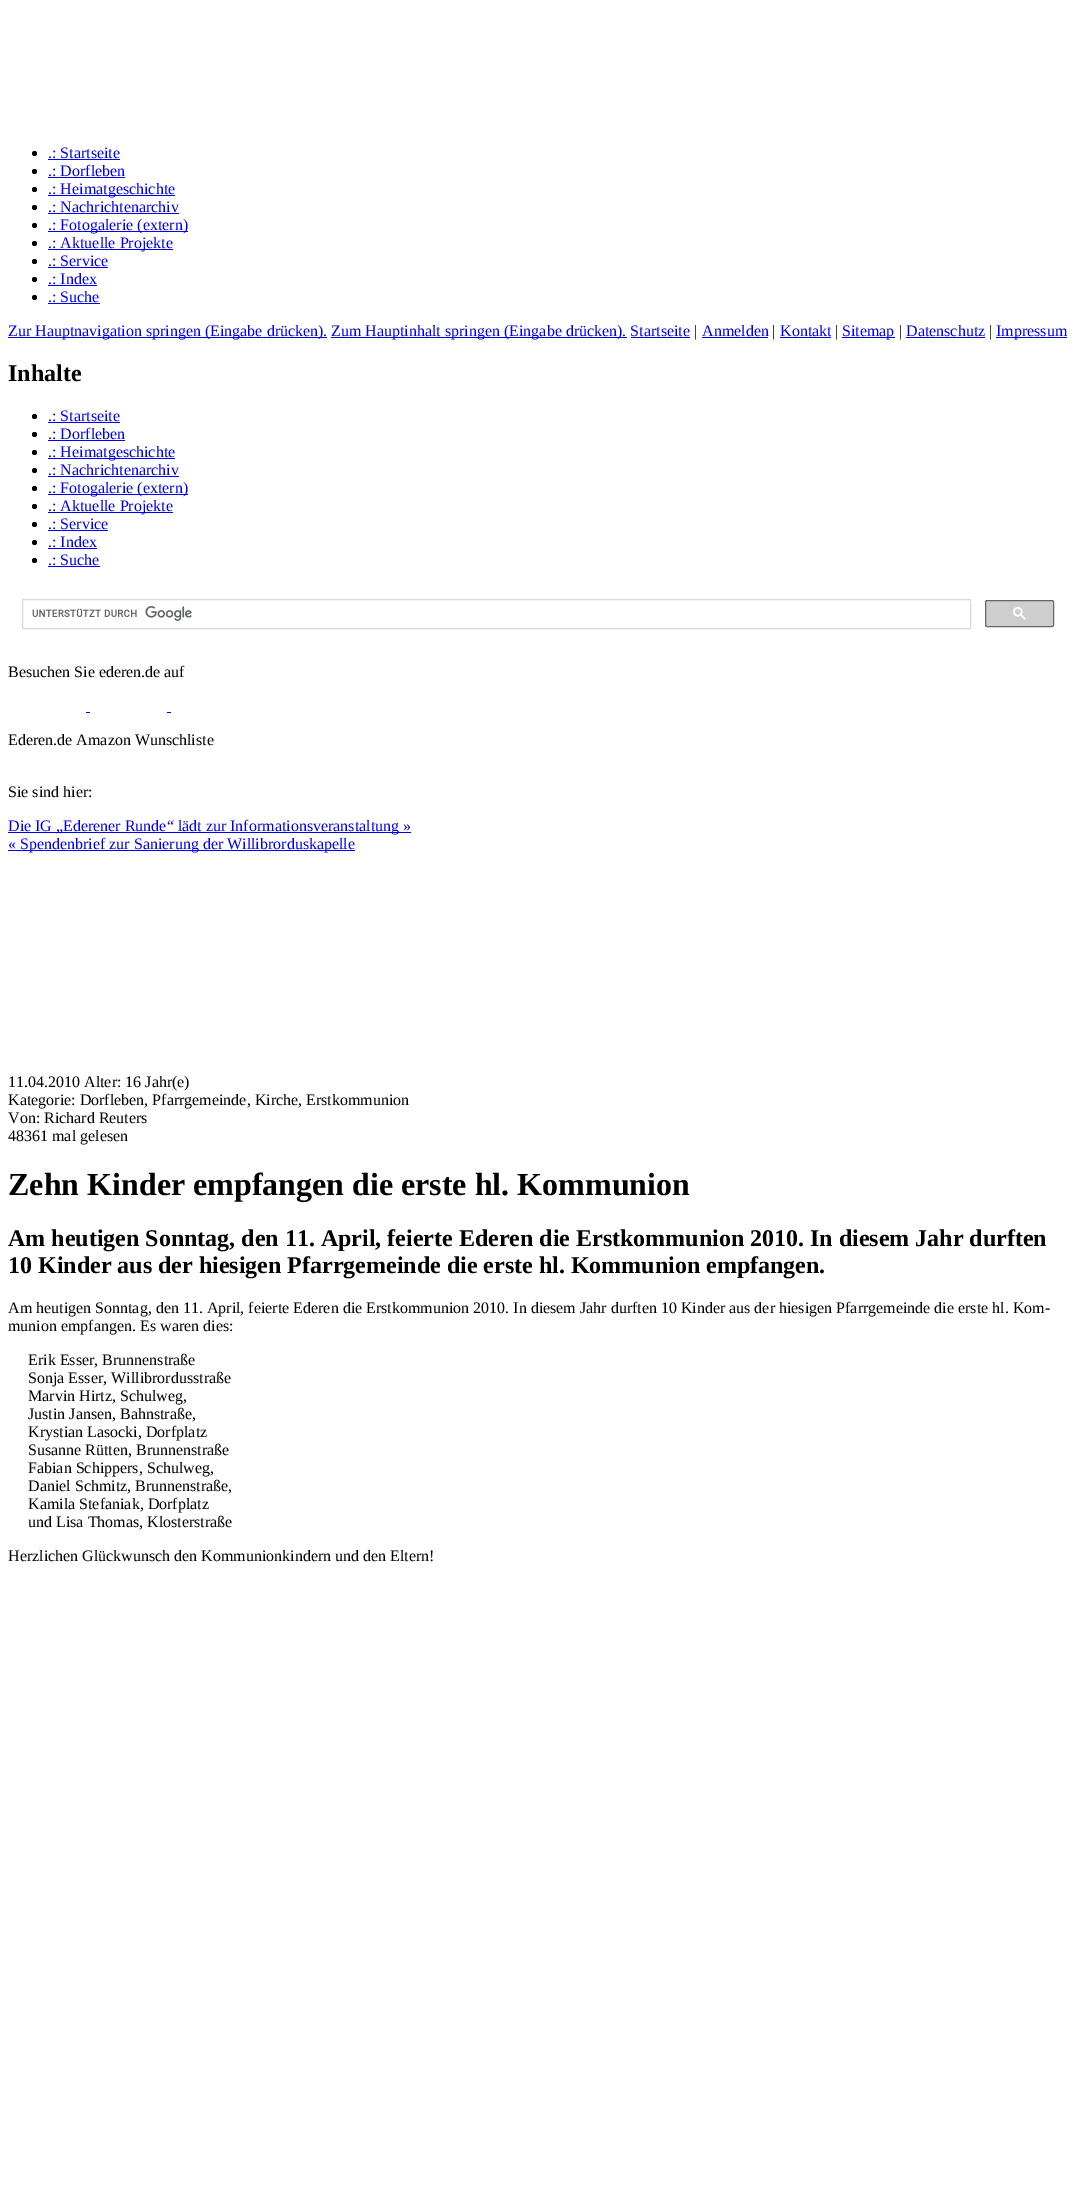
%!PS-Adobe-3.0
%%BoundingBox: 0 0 1076 2188
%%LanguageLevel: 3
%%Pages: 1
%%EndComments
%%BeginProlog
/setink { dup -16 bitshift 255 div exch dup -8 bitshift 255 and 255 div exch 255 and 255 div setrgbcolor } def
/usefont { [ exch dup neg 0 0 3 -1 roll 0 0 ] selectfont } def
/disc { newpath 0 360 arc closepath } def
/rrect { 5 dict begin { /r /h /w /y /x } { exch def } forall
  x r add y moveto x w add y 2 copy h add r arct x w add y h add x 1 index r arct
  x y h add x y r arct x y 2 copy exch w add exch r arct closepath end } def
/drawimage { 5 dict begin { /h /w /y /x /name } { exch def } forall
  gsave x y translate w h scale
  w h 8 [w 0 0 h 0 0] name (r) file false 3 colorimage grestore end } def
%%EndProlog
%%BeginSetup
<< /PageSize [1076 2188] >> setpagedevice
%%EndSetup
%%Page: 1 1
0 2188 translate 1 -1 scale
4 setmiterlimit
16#FFFFFF setink
0 0 1076 2188 rectfill
16#000000 setink
34.5 153.5 2.5 disc fill
/LiberationSerif-Regular 16 usefont
16#0000EE setink
48 158 moveto (.: Startseite) show
48 159 72 1 rectfill
16#000000 setink
34.5 171.5 2.5 disc fill
16#0000EE setink
48 176 moveto (.: Dorfleben) show
48 177 77 1 rectfill
16#000000 setink
34.5 189.5 2.5 disc fill
16#0000EE setink
48 195 127 1 rectfill
48 194 moveto (.: Heimatgeschichte) show
16#000000 setink
34.5 207.5 2.5 disc fill
16#0000EE setink
48 212 moveto (.: Nachrichtenarchiv) show
48 213 131 1 rectfill
16#000000 setink
34.5 225.5 2.5 disc fill
16#0000EE setink
48 231 140 1 rectfill
48 230 moveto (.: Fotogalerie \(extern\)) show
16#000000 setink
34.5 243.5 2.5 disc fill
16#0000EE setink
48 249 125 1 rectfill
48 248 moveto (.: Aktuelle Projekte) show
16#000000 setink
34.5 261.5 2.5 disc fill
16#0000EE setink
48 266 moveto (.: Service) show
48 267 60 1 rectfill
16#000000 setink
34.5 279.5 2.5 disc fill
16#0000EE setink
48 284 moveto (.: Index) show
48 285 49 1 rectfill
16#000000 setink
34.5 297.5 2.5 disc fill
16#0000EE setink
48 302 moveto (.: Suche) show
48 303 52 1 rectfill
8 337 319 1 rectfill
8 336 moveto (Zur Hauptnavigation springen \(Eingabe drücken\).) show
331 337 296 1 rectfill
331 336 moveto (Zum Hauptinhalt springen \(Eingabe drücken\). Startseite) show
16#000000 setink
694 336 moveto (|) show
16#0000EE setink
631 337 59 1 rectfill
702 336 moveto (Anmelden) show
702 337 66 1 rectfill
16#000000 setink
772 336 moveto (|) show
16#0000EE setink
780 336 moveto (Kontakt) show
780 337 51 1 rectfill
16#000000 setink
835 336 moveto (|) show
16#0000EE setink
842 337 53 1 rectfill
842 336 moveto (Sitemap) show
16#000000 setink
899 336 moveto (|) show
16#0000EE setink
906 336 moveto (Datenschutz) show
906 337 79 1 rectfill
16#000000 setink
989 336 moveto (|) show
16#0000EE setink
996 337 71 1 rectfill
996 336 moveto (Impressum) show
/LiberationSerif-Bold 24 usefont
16#000000 setink
8 381 moveto (Inhalte) show
34.5 416.5 2.5 disc fill
/LiberationSerif-Regular 16 usefont
16#0000EE setink
48 421 moveto (.: Startseite) show
48 422 72 1 rectfill
16#000000 setink
34.5 434.5 2.5 disc fill
16#0000EE setink
48 439 moveto (.: Dorfleben) show
48 440 77 1 rectfill
16#000000 setink
34.5 452.5 2.5 disc fill
16#0000EE setink
48 458 127 1 rectfill
48 457 moveto (.: Heimatgeschichte) show
16#000000 setink
34.5 470.5 2.5 disc fill
16#0000EE setink
48 475 moveto (.: Nachrichtenarchiv) show
48 476 131 1 rectfill
16#000000 setink
34.5 488.5 2.5 disc fill
16#0000EE setink
48 494 140 1 rectfill
48 493 moveto (.: Fotogalerie \(extern\)) show
16#000000 setink
34.5 506.5 2.5 disc fill
16#0000EE setink
48 512 125 1 rectfill
48 511 moveto (.: Aktuelle Projekte) show
16#000000 setink
34.5 524.5 2.5 disc fill
16#0000EE setink
48 529 moveto (.: Service) show
48 530 60 1 rectfill
16#000000 setink
34.5 542.5 2.5 disc fill
16#0000EE setink
48 547 moveto (.: Index) show
48 548 49 1 rectfill
16#000000 setink
34.5 560.5 2.5 disc fill
16#0000EE setink
48 565 moveto (.: Suche) show
48 566 52 1 rectfill
16#D9D9D9 setink
22.5 599.5 948 29 rectstroke
(img1.raw) 32 606 160 15 drawimage
16#CECECE setink
985.5 600.5 68 26 1.5 rrect gsave fill grestore
16#666666 setink
stroke
(img2.raw) 1013 607 13 13 drawimage
16#000000 setink
8 677 moveto (Besuchen Sie ederen.de auf) show
16#0000EE setink
86 712 4 1 rectfill
167 712 4 1 rectfill
16#000000 setink
8 745 moveto (Ederen.de Amazon Wunschliste) show
8 797 moveto (Sie sind hier:) show
16#0000EE setink
8 832 403 1 rectfill
8 831 moveto (Die IG „Ederener Runde“ lädt zur Informationsveranstaltung ») show
8 850 347 1 rectfill
8 849 moveto (« Spendenbrief zur Sanierung der Willibrorduskapelle) show
16#000000 setink
[
    [(11.04.2010 Alter: 16 Jahr\(e\)) 8 1087]
    [(Kategorie: Dorfleben, Pfarrgemeinde, Kirche, Erstkommunion) 8 1105]
    [(Von: Richard Reuters) 8 1123]
    [(48361 mal gelesen) 8 1141]
] { aload pop moveto show } forall
/LiberationSerif-Bold 32 usefont
8 1195 moveto (Zehn Kinder empfangen die erste hl. Kommunion) show
/LiberationSerif-Bold 24 usefont
8 1246 moveto (Am heutigen Sonntag, den 11. April, feierte Ederen die Erstkommunion 2010. In diesem Jahr durften) show
8 1273 moveto (10 Kinder aus der hiesigen Pfarrgemeinde die erste hl. Kommunion empfangen.) show
/LiberationSerif-Regular 16 usefont
[
    [(Am heutigen Sonntag, den 11. April, feierte Ederen die Erstkommunion 2010. In diesem Jahr durften 10 Kinder aus der hiesigen Pfarrgemeinde die erste hl. Kom-) 8 1313]
    [(munion empfangen. Es waren dies:) 8 1331]
    [(Erik Esser, Brunnenstraße) 28 1365]
    [(Sonja Esser, Willibrordusstraße) 28 1383]
    [(Marvin Hirtz, Schulweg,) 28 1401]
    [(Justin Jansen, Bahnstraße,) 28 1419]
    [(Krystian Lasocki, Dorfplatz) 28 1437]
    [(Susanne Rütten, Brunnenstraße) 28 1455]
    [(Fabian Schippers, Schulweg,) 28 1473]
    [(Daniel Schmitz, Brunnenstraße,) 28 1491]
    [(Kamila Stefaniak, Dorfplatz) 28 1509]
    [(und Lisa Thomas, Klosterstraße) 28 1527]
    [(Herzlichen Glückwunsch den Kommunionkindern und den Eltern!) 8 1561]
] { aload pop moveto show } forall
showpage
%%EOF
